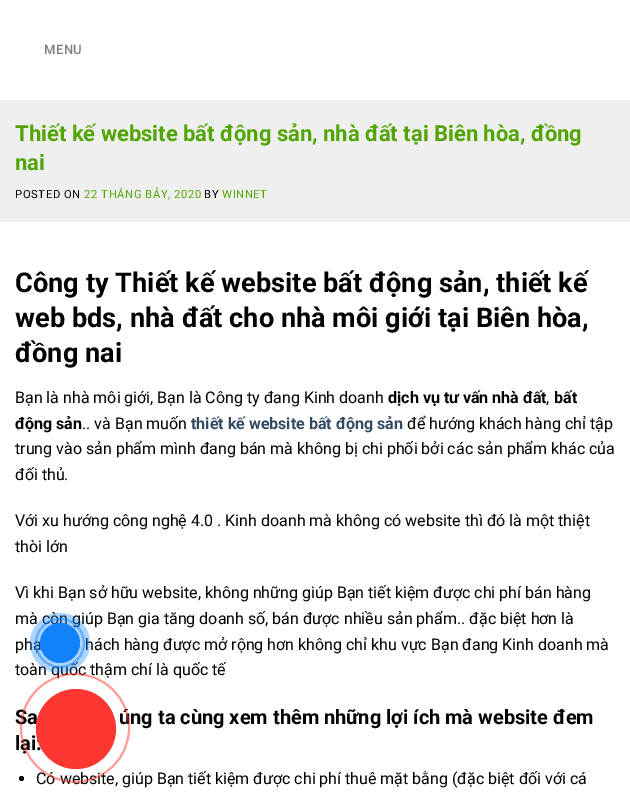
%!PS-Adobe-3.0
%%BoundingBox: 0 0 630 803
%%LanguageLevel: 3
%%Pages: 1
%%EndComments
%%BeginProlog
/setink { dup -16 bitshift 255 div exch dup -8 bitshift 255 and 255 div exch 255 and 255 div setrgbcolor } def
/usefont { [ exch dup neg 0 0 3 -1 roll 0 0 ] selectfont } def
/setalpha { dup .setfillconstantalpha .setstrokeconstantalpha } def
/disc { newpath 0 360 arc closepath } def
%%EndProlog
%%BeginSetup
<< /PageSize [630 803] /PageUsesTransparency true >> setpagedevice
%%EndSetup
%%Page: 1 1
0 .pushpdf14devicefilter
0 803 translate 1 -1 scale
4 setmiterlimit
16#FFFFFF setink
0 0 630 803 rectfill
/Roboto-Medium 13 usefont
16#7D7D7D setink
44 54 moveto 0.5 0 (MENU) ashow
16#EFEFEF setink
0 100 630 122 rectfill
/Roboto-Bold 22 usefont
16#50A400 setink
15 141 moveto (Thiết kế website bất động sản, nhà đất tại Biên hòa, đồng) show
15 170 moveto (nai) show
/Roboto-Regular 11.25 usefont
16#000000 setink
15 198 moveto 0.6 0 (POSTED ON) ashow
16#50A400 setink
84 198 moveto 0.6 0 (22 THÁNG BẢY, 2020) ashow
16#000000 setink
204 198 moveto 0.6 0 (BY) ashow
16#50A400 setink
222 198 moveto 0.6 0 (WINNET) ashow
/Roboto-Bold 27.2 usefont
16#000000 setink
[
    [(Công ty Thiết kế website bất động sản, thiết kế) 15 292]
    [(web bds, nhà đất cho nhà môi giới tại Biên hòa,) 15 327]
    [(đồng nai) 15 362]
] { aload pop moveto show } forall
/Roboto-Regular 16 usefont
15 403 moveto (Bạn là nhà môi giới, Bạn là Công ty đang Kinh doanh) show
/Roboto-Bold 16 usefont
388 403 moveto (dịch vụ tư vấn nhà đất) show
/Roboto-Regular 16 usefont
546 403 moveto (,) show
/Roboto-Bold 16 usefont
554 403 moveto (bất) show
15 429 moveto (động sản) show
/Roboto-Regular 16 usefont
82 429 moveto (.. và Bạn muốn) show
/Roboto-Bold 16 usefont
16#334862 setink
191 429 moveto (thiết kế website bất động sản) show
/Roboto-Regular 16 usefont
16#000000 setink
[
    [(để hướng khách hàng chỉ tập) 407 429]
    [(trung vào sản phẩm mình đang bán mà không bị chi phối bởi các sản phẩm khác của) 15 454]
    [(đối thủ.) 15 480]
    [(Với xu hướng công nghệ 4.0 . Kinh doanh mà không có website thì đó là một thiệt) 15 526]
    [(thòi lớn) 15 552]
    [(Vì khi Bạn sở hữu website, không những giúp Bạn tiết kiệm được chi phí bán hàng) 15 598]
    [(mà còn giúp Bạn gia tăng doanh số, bán được nhiều sản phẩm.. đặc biệt hơn là) 15 624]
    [(phạ) 15 650]
    [(hách hàng được mở rộng hơn không chỉ khu vực Bạn đang Kinh doanh mà) 85 650]
    [(toàn quốc thậm chí là quốc tế) 15 675]
] { aload pop moveto show } forall
/Roboto-Bold 20 usefont
[
    [(Sa) 15 724]
    [(úng ta cùng xem thêm những lợi ích mà website đem) 119 724]
    [(lại:) 15 750]
] { aload pop moveto show } forall
21.5 778.5 2.5 disc fill
/Roboto-Regular 16 usefont
36 784 moveto (Có website, giúp Bạn tiết kiệm được chi phí thuê mặt bằng \(đặc biệt đối với cá) show
0.5 setalpha
16#1182FC setink
2 setlinewidth
60 643 24 disc stroke
0.34 setalpha
60 643 30 disc fill
1 setalpha
60 643 20 disc fill
0.5 setalpha
16#FC3732 setink
75 728 54 disc stroke
1 setalpha
76 729 40 disc fill
.poppdf14devicefilter showpage
%%EOF
